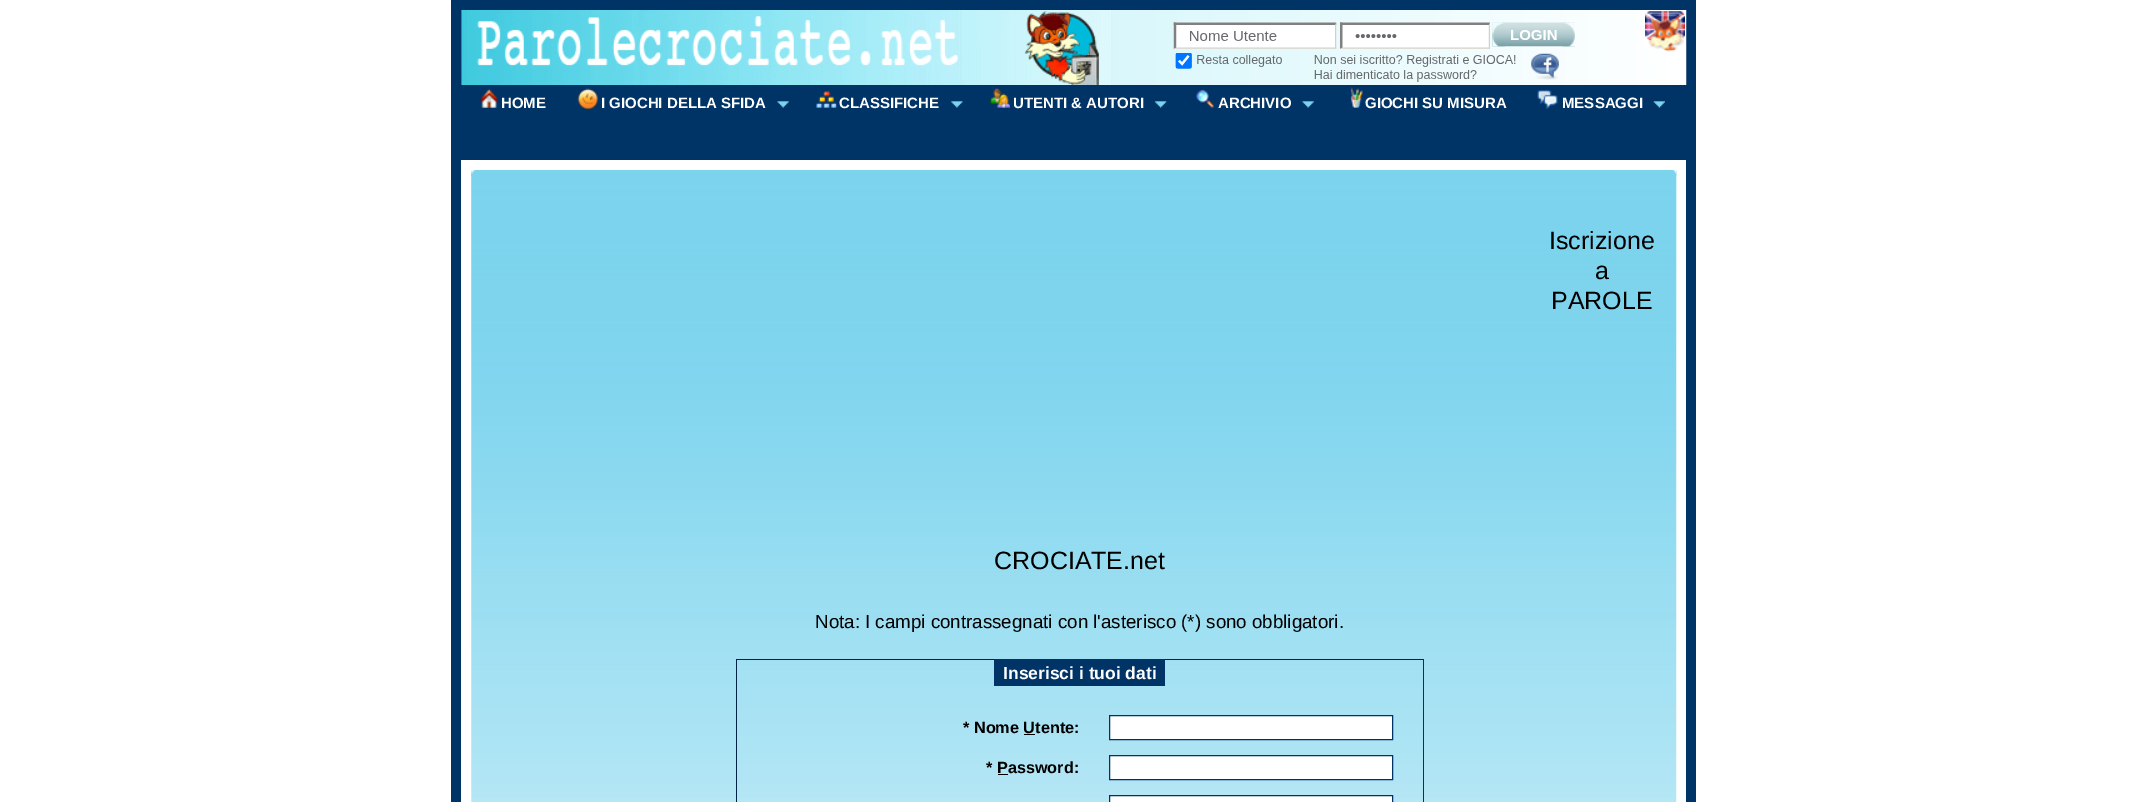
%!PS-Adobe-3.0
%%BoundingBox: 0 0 2146 802
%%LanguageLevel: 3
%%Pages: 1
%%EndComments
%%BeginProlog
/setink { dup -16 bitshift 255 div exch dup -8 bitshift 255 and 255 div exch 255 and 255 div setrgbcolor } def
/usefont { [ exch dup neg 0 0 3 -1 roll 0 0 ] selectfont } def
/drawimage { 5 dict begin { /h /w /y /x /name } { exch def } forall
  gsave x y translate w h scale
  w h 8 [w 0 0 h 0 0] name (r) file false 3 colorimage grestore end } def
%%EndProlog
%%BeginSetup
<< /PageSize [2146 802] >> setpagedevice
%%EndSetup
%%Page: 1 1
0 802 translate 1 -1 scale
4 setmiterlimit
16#FFFFFF setink
0 0 2146 802 rectfill
16#003366 setink
451 0 1245 802 rectfill
(img2.raw) 1111 10 576 75 drawimage
(img1.raw) 1645 11 40 41 drawimage
(img3.raw) 461 10 651 75 drawimage
(img4.raw) 1111 10 464 75 drawimage
(img5.raw) 480 88 18 20 drawimage
/LiberationSans-Bold 15 usefont
16#FFFFFF setink
501 108 moveto (HOME) show
(img6.raw) 577 88 21 22 drawimage
601 108 moveto (I GIOCHI DELLA SFIDA) show
(img7.raw) 777 101 12 7 drawimage
(img8.raw) 816 91 21 17 drawimage
839 108 moveto (CLASSIFICHE) show
(img9.raw) 951 101 12 7 drawimage
(img10.raw) 990 88 20 20 drawimage
1013 108 moveto (UTENTI & AUTORI) show
(img11.raw) 1154 101 13 7 drawimage
(img12.raw) 1196 89 18 19 drawimage
1218 108 moveto (ARCHIVIO) show
(img7.raw) 1302 101 12 7 drawimage
(img13.raw) 1350 87 13 21 drawimage
1365 108 moveto (GIOCHI SU MISURA) show
(img14.raw) 1537 90 21 19 drawimage
1562 108 moveto (MESSAGGI) show
(img15.raw) 1653 101 12 7 drawimage
461 160 1225 642 rectfill
(img16.raw) 471 170 1206 213 drawimage
(img17.raw) 471 170 1206 632 drawimage
(img18.raw) 471 170 4 7 drawimage
(img19.raw) 1673 170 4 7 drawimage
/LiberationSans-Regular 25 usefont
16#000000 setink
[
    [(Iscrizione) 1549 249]
    [(a) 1595 279]
    [(PAROLE) 1551 309]
    [(CROCIATE.net) 994 569]
] { aload pop moveto show } forall
/LiberationSans-Regular 18.75 usefont
815 628 moveto (Nota: I campi contrassegnati con l'asterisco \(*\) sono obbligatori.) show
[
    [736 659 688 1 16#002244]
    [1423 659 1 143 16#003366]
    [736 659 1 143 16#002244]
    [994 659 171 27 16#003366]
] { aload pop setink rectfill } forall
/LiberationSans-Bold 17.5 usefont
16#FFFFFF setink
1003 679 moveto (Inserisci i tuoi dati) show
/LiberationSans-Bold 16.25 usefont
16#000000 setink
963 733 moveto (* Nome Utente:) show
1024 734 11 1 rectfill
16#FFFFFF setink
1109.5 715.5 moveto 1392.5 715.5 lineto 1392.5 739.5 lineto 1109.5 739.5 lineto closepath gsave fill grestore
16#003366 setink
stroke
16#000000 setink
986 773 moveto (* Password:) show
998 774 10 1 rectfill
16#FFFFFF setink
1109.5 755.5 moveto 1392.5 755.5 lineto 1392.5 779.5 lineto 1109.5 779.5 lineto closepath gsave fill grestore
16#003366 setink
stroke
16#FFFFFF setink
1109.5 795.5 moveto 1392.5 795.5 lineto 1392.5 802.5 lineto 1109.5 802.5 lineto closepath gsave fill grestore
16#003366 setink
stroke
showpage
%%EOF
